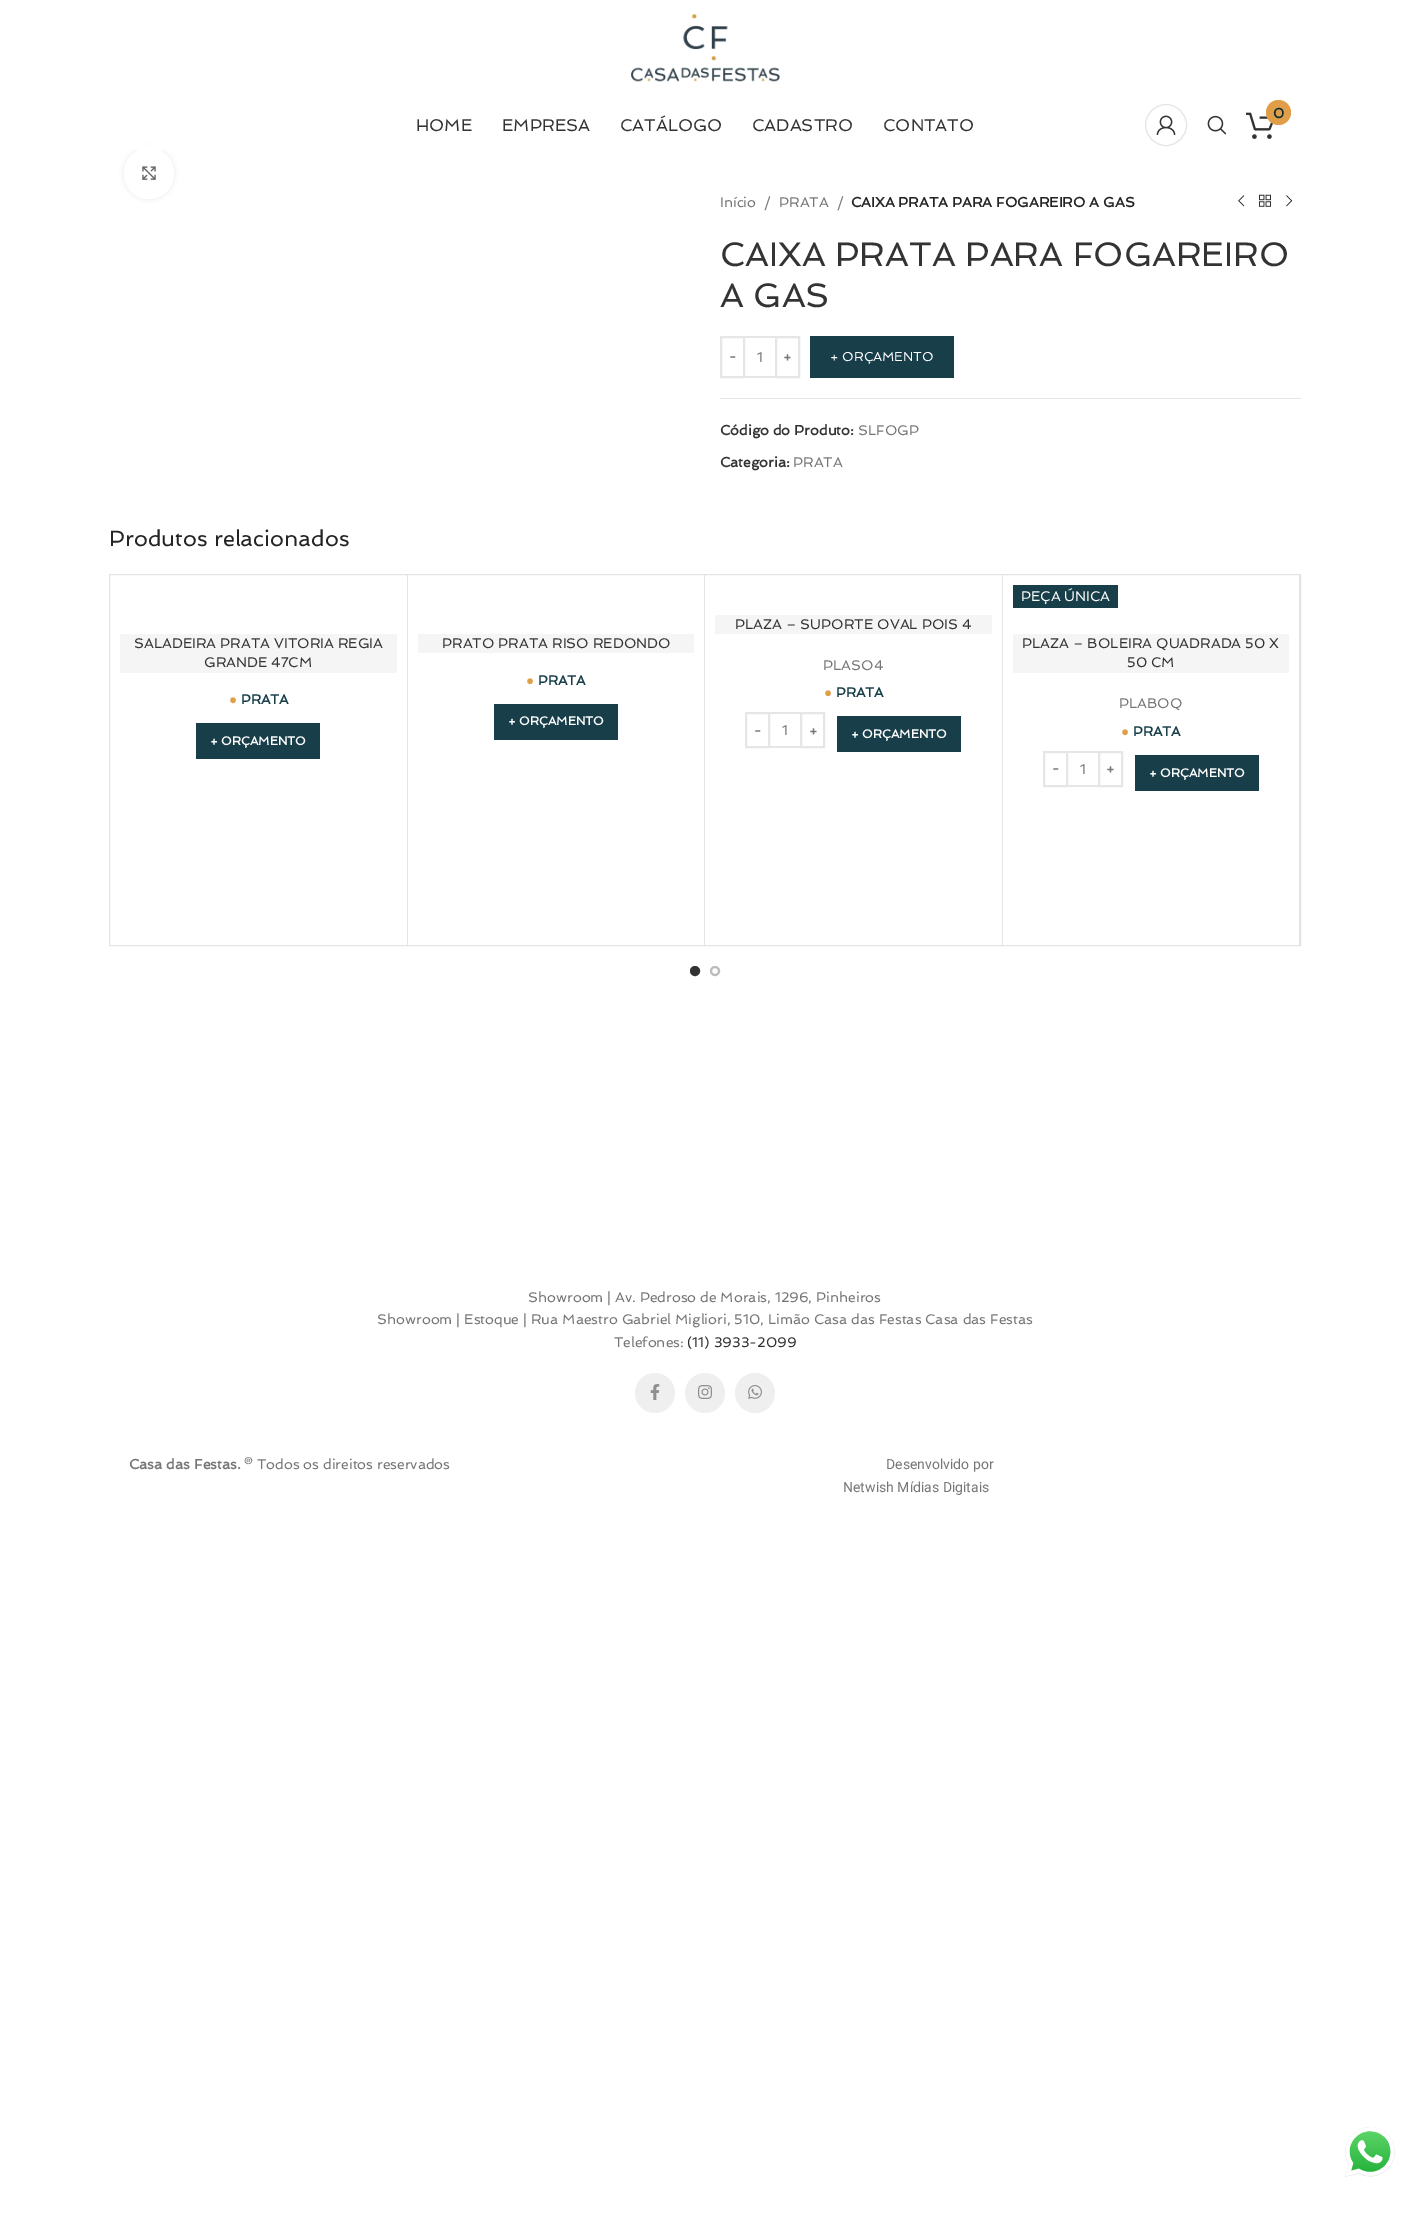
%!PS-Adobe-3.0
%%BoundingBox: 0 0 1410 2232
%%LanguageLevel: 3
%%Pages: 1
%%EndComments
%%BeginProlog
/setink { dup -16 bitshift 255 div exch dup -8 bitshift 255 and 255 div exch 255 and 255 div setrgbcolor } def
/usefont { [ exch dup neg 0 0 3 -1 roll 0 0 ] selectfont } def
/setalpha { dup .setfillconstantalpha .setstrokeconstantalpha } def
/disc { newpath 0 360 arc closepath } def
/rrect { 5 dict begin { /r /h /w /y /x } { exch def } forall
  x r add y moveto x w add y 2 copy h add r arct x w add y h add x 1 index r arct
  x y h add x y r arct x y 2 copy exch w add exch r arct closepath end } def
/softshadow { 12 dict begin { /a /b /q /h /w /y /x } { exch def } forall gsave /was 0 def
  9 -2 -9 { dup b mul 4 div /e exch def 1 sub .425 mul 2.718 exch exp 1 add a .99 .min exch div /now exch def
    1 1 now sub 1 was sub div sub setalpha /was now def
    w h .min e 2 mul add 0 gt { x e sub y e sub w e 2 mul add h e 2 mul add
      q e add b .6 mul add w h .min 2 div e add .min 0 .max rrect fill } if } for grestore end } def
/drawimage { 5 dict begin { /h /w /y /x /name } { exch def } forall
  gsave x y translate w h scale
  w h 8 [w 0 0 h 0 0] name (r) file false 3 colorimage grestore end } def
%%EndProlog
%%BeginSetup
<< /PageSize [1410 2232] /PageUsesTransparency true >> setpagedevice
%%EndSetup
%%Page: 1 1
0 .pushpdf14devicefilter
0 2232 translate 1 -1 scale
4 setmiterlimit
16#FFFFFF setink
0 0 1410 2232 rectfill
(img1.raw) 631 14 149 68 drawimage
16#000000 setink
124 148 50 51 25 2.5 0.08 softshadow
16#FFFFFF setink
124 148 50 51 25 rrect fill
134 145 30 5 rectfill
16#E4E4E4 setink
1166 125 20.5 disc stroke
(img2.raw) 1156 115 20 20 drawimage
(img3.raw) 1246 112 28 27 drawimage
16#E19E48 setink
1278.5 112.5 12.5 disc fill
/Spinnaker-Bold 14 usefont
16#0E2C34 setink
1273 118 moveto (0) show
(img4.raw) 1207 115 20 20 drawimage
/Spinnaker-Regular 17 usefont
16#333333 setink
[
    [(HOME) 416 131]
    [(EMPRESA) 502 131]
    [(CATÁLOGO) 620 131]
    [(CADASTRO) 752 131]
    [(CONTATO) 883 131]
] { aload pop moveto show } forall
(img5.raw) 142 166 14 14 drawimage
/Spinnaker-Regular 14 usefont
16#767676 setink
[
    [(Início) 720 207]
    [(/) 764 207]
    [(PRATA) 779 207]
    [(/) 837 207]
] { aload pop moveto show } forall
/Spinnaker-Bold 14 usefont
16#242424 setink
851 207 moveto (CAIXA PRATA PARA FOGAREIRO A GAS) show
(img6.raw) 1238 195 7 12 drawimage
(img7.raw) 1259 194 12 13 drawimage
(img8.raw) 1286 195 7 12 drawimage
/Spinnaker-Regular 34 usefont
16#333333 setink
720 266 moveto (CAIXA PRATA PARA FOGAREIRO) show
720 307 moveto (A GAS) show
16#E6E6E6 setink
2 setlinewidth
721 337 23 40 rectstroke
/Spinnaker-Bold 13 usefont
16#767676 setink
729 361 moveto (-) show
16#E6E6E6 setink
745 336 30 2 rectfill
745 376 30 2 rectfill
/Spinnaker-Regular 14 usefont
16#767676 setink
757 362 moveto (1) show
16#E6E6E6 setink
776 337 23 40 rectstroke
/Spinnaker-Bold 13 usefont
16#767676 setink
783 361 moveto (+) show
16#173E49 setink
810 336 144 42 rectfill
/Spinnaker-Regular 13 usefont
16#FFFFFF setink
830 361 moveto (+ ORÇAMENTO) show
16#E4E4E4 setink
720 398 581 1 rectfill
/Spinnaker-Bold 14 usefont
16#333333 setink
720 435 moveto (Código do Produto:) show
/Spinnaker-Regular 14 usefont
16#767676 setink
858 435 moveto (SLFOGP) show
/Spinnaker-Bold 14 usefont
16#333333 setink
720 467 moveto (Categoria:) show
/Spinnaker-Regular 14 usefont
16#767676 setink
793 467 moveto (PRATA) show
/Spinnaker-Regular 22 usefont
16#242424 setink
109 546 moveto (Produtos relacionados) show
16#E4E4E4 setink
1 setlinewidth
109.5 574.5 1191 371 rectstroke
407 575 1 370 rectfill
16#F5F5F5 setink
120 634 277 39 rectfill
/Spinnaker-Regular 14 usefont
16#333333 setink
134 648 moveto (SALADEIRA PRATA VITORIA REGIA) show
204 667 moveto (GRANDE 47CM) show
/LiberationSans-Bold 13.5 usefont
16#E19E48 setink
229 704 moveto (●) show
/Spinnaker-Bold 13.5 usefont
16#173E49 setink
241 704 moveto (PRATA) show
196 723 124 36 rectfill
/Spinnaker-Bold 12 usefont
16#FFFFFF setink
210 745 moveto (+ ORÇAMENTO) show
16#E4E4E4 setink
704 575 1 370 rectfill
16#F5F5F5 setink
418 634 276 19 rectfill
/Spinnaker-Regular 14 usefont
16#333333 setink
442 648 moveto (PRATO PRATA RISO REDONDO) show
/LiberationSans-Bold 13.5 usefont
16#E19E48 setink
526 685 moveto (●) show
/Spinnaker-Bold 13.5 usefont
16#173E49 setink
538 685 moveto (PRATA) show
494 704 124 36 rectfill
/Spinnaker-Bold 12 usefont
16#FFFFFF setink
508 725 moveto (+ ORÇAMENTO) show
16#E4E4E4 setink
1002 575 1 370 rectfill
16#F5F5F5 setink
715 615 277 19 rectfill
/Spinnaker-Regular 14 usefont
16#333333 setink
735 629 moveto (PLAZA – SUPORTE OVAL POIS 4) show
16#767676 setink
823 670 moveto (PLASO4) show
/LiberationSans-Bold 13.5 usefont
16#E19E48 setink
824 697 moveto (●) show
/Spinnaker-Bold 13.5 usefont
16#173E49 setink
836 697 moveto (PRATA) show
16#E6E6E6 setink
2 setlinewidth
746 713 23 34 rectstroke
/Spinnaker-Bold 13 usefont
16#767676 setink
754 735 moveto (-) show
16#E6E6E6 setink
770 712 30 2 rectfill
770 746 30 2 rectfill
/Spinnaker-Regular 14 usefont
16#767676 setink
782 735 moveto (1) show
16#E6E6E6 setink
801 713 23 34 rectstroke
/Spinnaker-Bold 13 usefont
16#767676 setink
809 735 moveto (+) show
16#173E49 setink
837 716 124 36 rectfill
/Spinnaker-Bold 12 usefont
16#FFFFFF setink
851 738 moveto (+ ORÇAMENTO) show
16#E4E4E4 setink
1299 575 1 370 rectfill
16#173E49 setink
1013 585 105 23 rectfill
/Spinnaker-Regular 14 usefont
16#FFFFFF setink
1021 601 moveto (PEÇA ÚNICA) show
16#F5F5F5 setink
1013 634 276 39 rectfill
16#333333 setink
1022 648 moveto (PLAZA – BOLEIRA QUADRADA 50 X) show
1127 667 moveto (50 CM) show
16#767676 setink
1119 708 moveto (PLABOQ) show
/LiberationSans-Bold 13.5 usefont
16#E19E48 setink
1121 736 moveto (●) show
/Spinnaker-Bold 13.5 usefont
16#173E49 setink
1133 736 moveto (PRATA) show
16#E6E6E6 setink
1044 752 23 34 rectstroke
/Spinnaker-Bold 13 usefont
16#767676 setink
1052 773 moveto (-) show
16#E6E6E6 setink
1068 751 30 2 rectfill
1068 785 30 2 rectfill
/Spinnaker-Regular 14 usefont
16#767676 setink
1080 774 moveto (1) show
16#E6E6E6 setink
1099 752 23 34 rectstroke
/Spinnaker-Bold 13 usefont
16#767676 setink
1106 773 moveto (+) show
16#173E49 setink
1135 755 124 36 rectfill
/Spinnaker-Bold 12 usefont
16#FFFFFF setink
1149 777 moveto (+ ORÇAMENTO) show
16#333333 setink
695 971 4 disc gsave fill grestore
stroke
16#BBBBBB setink
715 971 4 disc stroke
/Spinnaker-Regular 14 usefont
16#767676 setink
[
    [(Showroom | Av. Pedroso de Morais, 1296, Pinheiros) 528 1302]
    [(Showroom | Estoque | Rua Maestro Gabriel Migliori, 510, Limão Casa das Festas Casa das Festas) 377 1324]
    [(Telefones:) 614 1347]
] { aload pop moveto show } forall
16#333333 setink
687 1347 moveto (\(11\) 3933-2099) show
16#EFEFEF setink
655 1393 20 disc fill
(img9.raw) 650 1384 10 16 drawimage
705 1393 20 disc fill
(img10.raw) 698 1385 14 14 drawimage
755 1393 20 disc fill
(img11.raw) 748 1385 14 14 drawimage
/Spinnaker-Bold 14 usefont
16#767676 setink
129 1469 moveto (Casa das Festas.) show
/Spinnaker-Regular 14 usefont
244 1469 moveto (® Todos os direitos reservados) show
/Roboto-Regular 14 usefont
886 1469 moveto (Desenvolvido por) show
843 1492 moveto (Netwish Mídias Digitais) show
(img12.raw) 1345 2127 50 50 drawimage
.poppdf14devicefilter showpage
%%EOF
